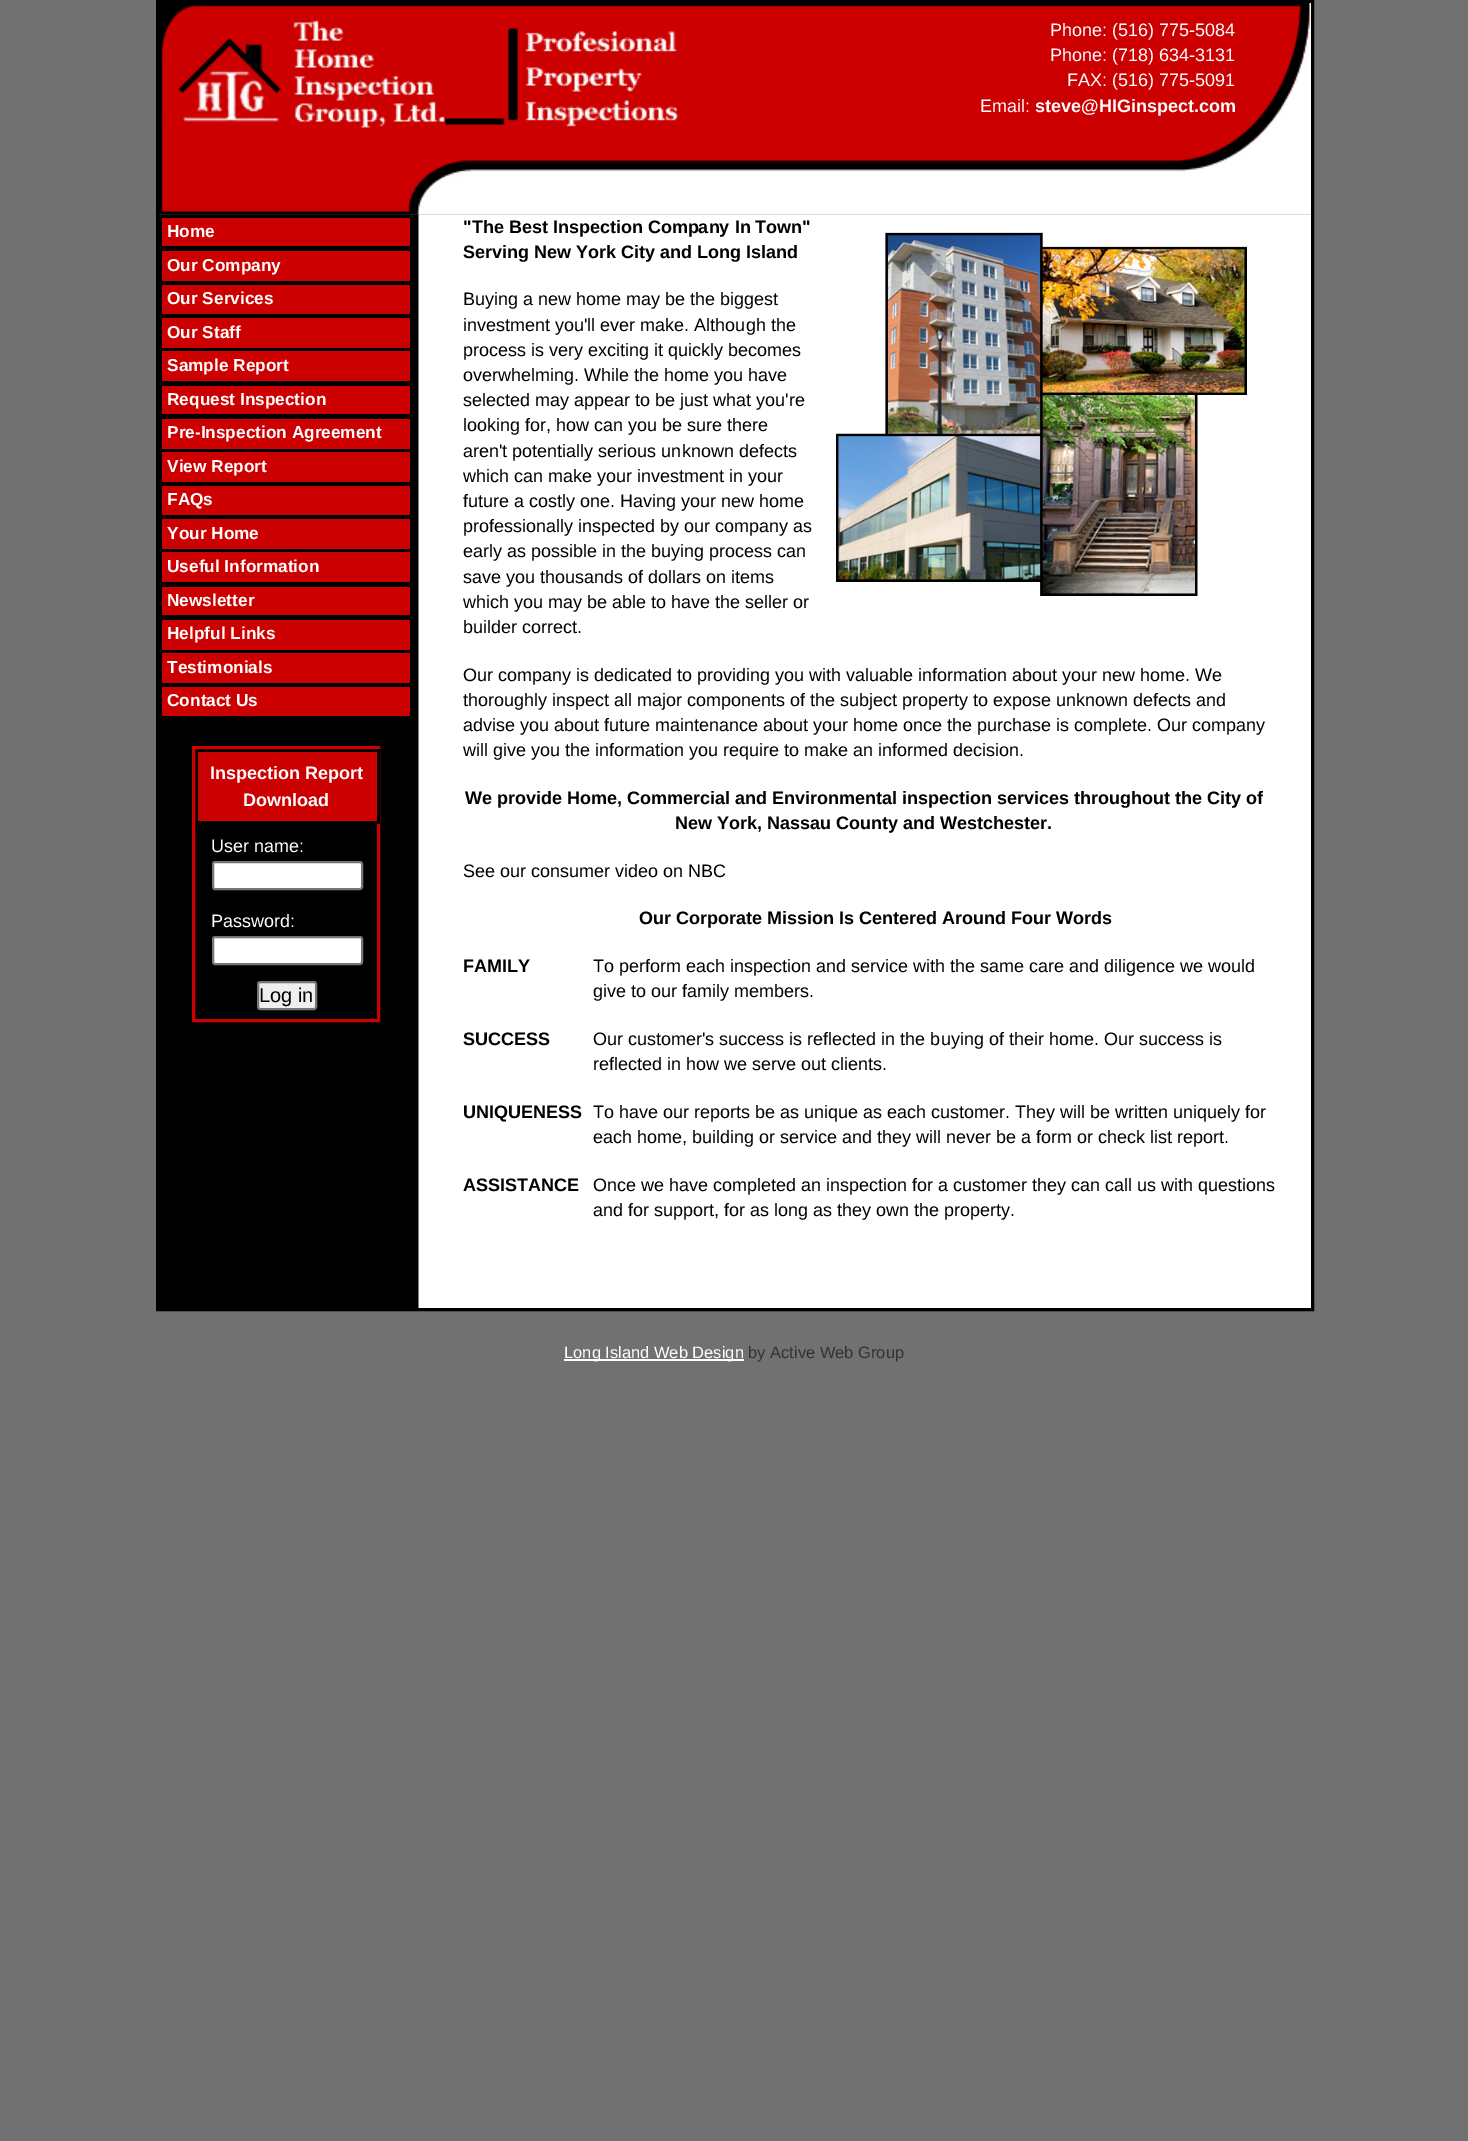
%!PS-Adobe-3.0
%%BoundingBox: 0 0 1468 2141
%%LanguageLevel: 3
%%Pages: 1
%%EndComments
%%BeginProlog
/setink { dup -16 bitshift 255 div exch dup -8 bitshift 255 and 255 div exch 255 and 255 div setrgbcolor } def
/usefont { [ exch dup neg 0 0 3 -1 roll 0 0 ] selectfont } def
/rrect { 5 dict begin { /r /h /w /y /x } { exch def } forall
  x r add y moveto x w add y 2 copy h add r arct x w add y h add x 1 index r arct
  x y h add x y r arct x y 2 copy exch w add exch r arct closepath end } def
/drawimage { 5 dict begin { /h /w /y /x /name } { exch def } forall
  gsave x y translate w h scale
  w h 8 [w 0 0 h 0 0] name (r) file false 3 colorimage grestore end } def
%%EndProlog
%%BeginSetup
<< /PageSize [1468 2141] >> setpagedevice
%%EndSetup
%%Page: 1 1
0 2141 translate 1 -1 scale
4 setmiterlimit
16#717171 setink
0 0 1468 2141 rectfill
16#000000 setink
3 setlinewidth
157.5 1.5 1155 1308 rectstroke
(img1.raw) 159 3 1152 212 drawimage
(img2.raw) 174 18 505 110 drawimage
/LiberationSans-Regular 18 usefont
16#FFFFFF setink
[
    [(Phone: \(516\) 775-5084) 1050 36]
    [(Phone: \(718\) 634-3131) 1050 61]
    [(FAX: \(516\) 775-5091) 1067 86]
    [(Email:) 980 112]
] { aload pop moveto show } forall
/LiberationSans-Bold 18 usefont
1035 112 moveto (steve@HIGinspect.com) show
(img3.raw) 159 214 1152 1094 drawimage
16#CC0001 setink
162 218 248 28 rectfill
/LiberationSans-Bold 17.25 usefont
16#FFFFFF setink
167 237 moveto (Home) show
16#CC0001 setink
162 251 248 30 rectfill
16#FFFFFF setink
167 271 moveto (Our Company) show
16#CC0001 setink
162 285 248 29 rectfill
16#FFFFFF setink
167 304 moveto (Our Services) show
16#CC0001 setink
162 318 248 30 rectfill
16#FFFFFF setink
167 338 moveto (Our Staff) show
16#CC0001 setink
162 351 248 30 rectfill
16#FFFFFF setink
167 371 moveto (Sample Report) show
16#CC0001 setink
162 386 248 28 rectfill
16#FFFFFF setink
167 405 moveto (Request Inspection) show
16#CC0001 setink
162 419 248 30 rectfill
16#FFFFFF setink
167 438 moveto (Pre-Inspection Agreement) show
16#CC0001 setink
162 452 248 30 rectfill
16#FFFFFF setink
167 472 moveto (View Report) show
16#CC0001 setink
162 486 248 29 rectfill
16#FFFFFF setink
167 505 moveto (FAQs) show
16#CC0001 setink
162 519 248 30 rectfill
16#FFFFFF setink
167 539 moveto (Your Home) show
16#CC0001 setink
162 552 248 30 rectfill
16#FFFFFF setink
167 572 moveto (Useful Information) show
16#CC0001 setink
162 587 248 28 rectfill
16#FFFFFF setink
167 606 moveto (Newsletter) show
16#CC0001 setink
162 620 248 30 rectfill
16#FFFFFF setink
167 639 moveto (Helpful Links) show
16#CC0001 setink
162 653 248 30 rectfill
16#FFFFFF setink
167 673 moveto (Testimonials) show
16#CC0001 setink
162 687 248 29 rectfill
16#FFFFFF setink
167 706 moveto (Contact Us) show
16#CC0000 setink
193.5 747.5 185 273 rectstroke
198 752 179 69 rectfill
16#000000 setink
377 749 3 75 rectfill
/LiberationSans-Bold 18 usefont
16#FFFFFF setink
210 779 moveto (Inspection Report) show
243 806 moveto (Download) show
/LiberationSans-Regular 18 usefont
211 852 moveto (User name:) show
213 862 149 27 2 rrect gsave fill grestore
16#767676 setink
2 setlinewidth
stroke
16#FFFFFF setink
211 927 moveto (Password:) show
213 937 149 27 2 rrect gsave fill grestore
16#767676 setink
stroke
16#EFEFEF setink
258 982 58 27 2 rrect gsave fill grestore
16#767676 setink
stroke
/LiberationSans-Regular 20 usefont
16#000000 setink
259 1002 moveto (Log in) show
/LiberationSans-Bold 18 usefont
463 233 moveto ("The Best Inspection Company In Town") show
463 258 moveto (Serving New York City and Long Island) show
(img4.raw) 836 232 411 364 drawimage
/LiberationSans-Regular 18 usefont
[
    [(Buying a new home may be the biggest) 463 305]
    [(investment you'll ever make. Although the) 463 331]
    [(process is very exciting it quickly becomes) 463 356]
    [(overwhelming. While the home you have) 463 381]
    [(selected may appear to be just what you're) 463 406]
    [(looking for, how can you be sure there) 463 431]
    [(aren't potentially serious unknown defects) 463 457]
    [(which can make your investment in your) 463 482]
    [(future a costly one. Having your new home) 463 507]
    [(professionally inspected by our company as) 463 532]
    [(early as possible in the buying process can) 463 557]
    [(save you thousands of dollars on items) 463 583]
    [(which you may be able to have the seller or) 463 608]
    [(builder correct.) 463 633]
    [(Our company is dedicated to providing you with valuable information about your new home. We) 463 681]
    [(thoroughly inspect all major components of the subject property to expose unknown defects and) 463 706]
    [(advise you about future maintenance about your home once the purchase is complete. Our company) 463 731]
    [(will give you the information you require to make an informed decision.) 463 756]
] { aload pop moveto show } forall
/LiberationSans-Bold 18 usefont
465 804 moveto (We provide Home, Commercial and Environmental inspection services throughout the City of) show
675 829 moveto (New York, Nassau County and Westchester.) show
/LiberationSans-Regular 18 usefont
463 877 moveto (See our consumer video on NBC) show
/LiberationSans-Bold 18 usefont
639 924 moveto (Our Corporate Mission Is Centered Around Four Words) show
463 972 moveto (FAMILY) show
/LiberationSans-Regular 18 usefont
593 972 moveto (To perform each inspection and service with the same care and diligence we would) show
593 997 moveto (give to our family members.) show
/LiberationSans-Bold 18 usefont
463 1045 moveto (SUCCESS) show
/LiberationSans-Regular 18 usefont
593 1045 moveto (Our customer's success is reflected in the buying of their home. Our success is) show
593 1070 moveto (reflected in how we serve out clients.) show
/LiberationSans-Bold 18 usefont
463 1118 moveto (UNIQUENESS) show
/LiberationSans-Regular 18 usefont
593 1118 moveto (To have our reports be as unique as each customer. They will be written uniquely for) show
593 1143 moveto (each home, building or service and they will never be a form or check list report.) show
/LiberationSans-Bold 18 usefont
463 1191 moveto (ASSISTANCE) show
/LiberationSans-Regular 18 usefont
593 1191 moveto (Once we have completed an inspection for a customer they can call us with questions) show
593 1216 moveto (and for support, for as long as they own the property.) show
16#FFFFFF setink
564 1359 180 2 rectfill
/LiberationSans-Regular 16.5 usefont
564 1358 moveto (Long Island Web Design) show
16#333333 setink
748 1358 moveto (by Active Web Group) show
showpage
%%EOF
